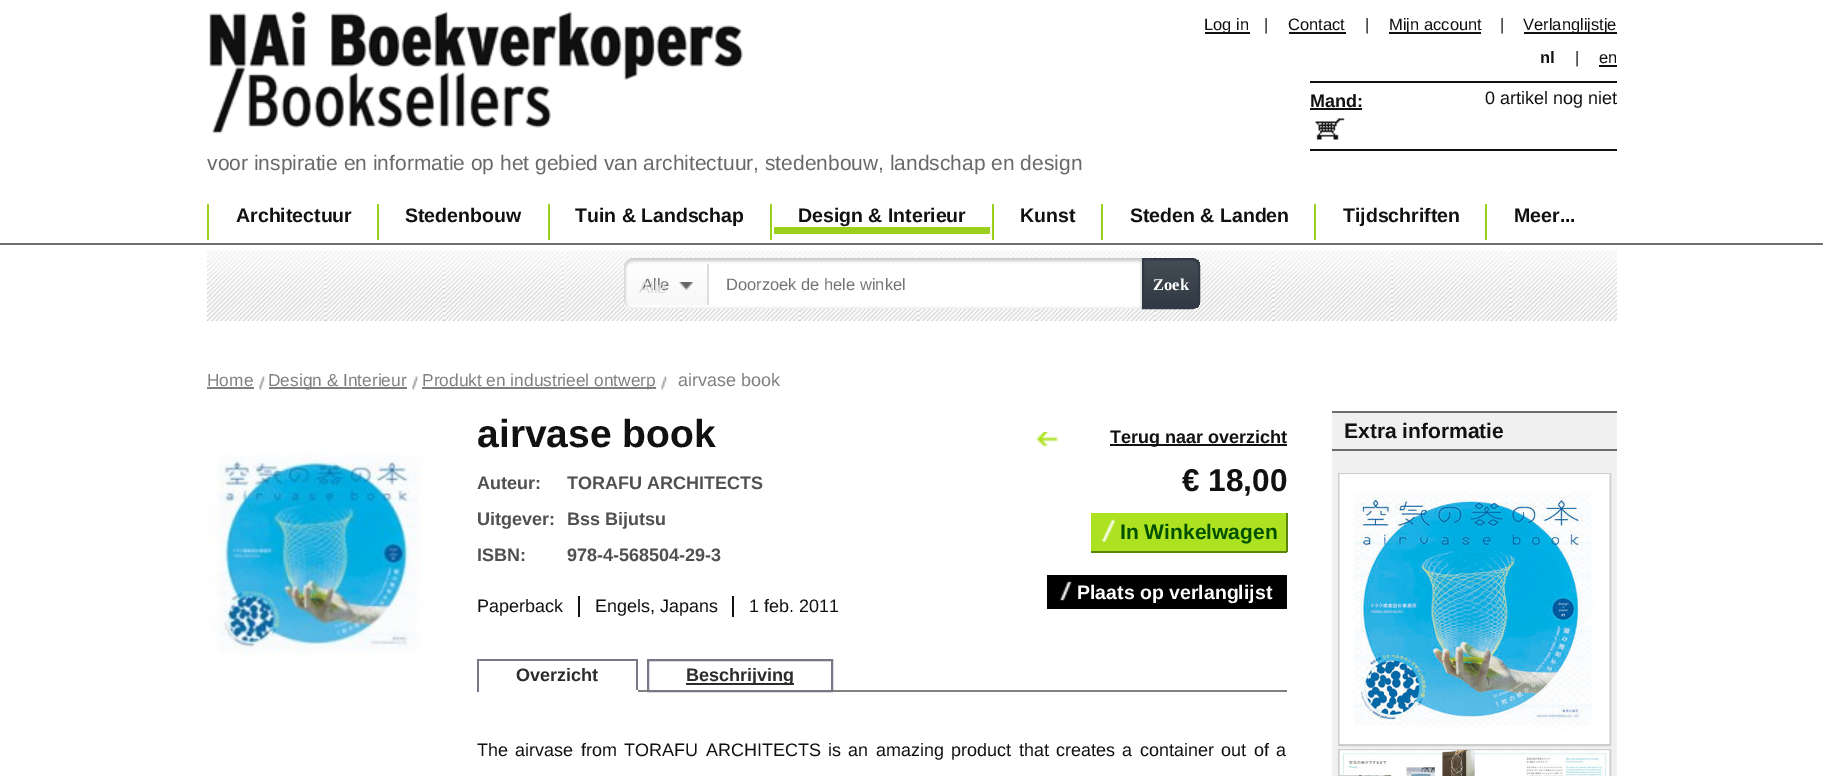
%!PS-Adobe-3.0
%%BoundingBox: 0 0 1823 776
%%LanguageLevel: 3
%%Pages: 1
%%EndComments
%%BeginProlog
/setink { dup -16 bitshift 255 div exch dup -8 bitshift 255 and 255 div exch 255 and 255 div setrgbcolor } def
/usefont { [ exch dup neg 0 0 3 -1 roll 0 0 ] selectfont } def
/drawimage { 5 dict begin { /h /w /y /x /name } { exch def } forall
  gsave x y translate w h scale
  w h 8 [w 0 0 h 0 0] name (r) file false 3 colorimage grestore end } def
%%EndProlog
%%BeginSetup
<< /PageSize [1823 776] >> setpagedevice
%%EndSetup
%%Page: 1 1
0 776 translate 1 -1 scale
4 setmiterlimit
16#FFFFFF setink
0 0 1823 776 rectfill
16#111111 setink
1205 32 45 2 rectfill
/LiberationSans-Regular 16.5 usefont
[
    [(Log in) 1204 30]
    [(|) 1264 30]
    [(Contact) 1288 30]
] { aload pop moveto show } forall
1289 32 57 2 rectfill
1365 30 moveto (|) show
1389 32 92 2 rectfill
1389 30 moveto (Mijn account) show
1500 30 moveto (|) show
1524 32 93 2 rectfill
1523 30 moveto (Verlanglijstje) show
/LiberationSans-Bold 16.5 usefont
1540 63 moveto (nl) show
/LiberationSans-Regular 16.5 usefont
1575 63 moveto (|) show
1599 63 moveto (en) show
[
    [1599 65 18 2 16#111111]
    [1310 81 307 2 16#111111]
    [1310 149 307 2 16#111111]
] { aload pop setink rectfill } forall
(img1.raw) 1315 118 30 22 drawimage
/LiberationSans-Bold 18 usefont
1310 107 moveto (Mand:) show
1310 108 52 2 rectfill
/LiberationSans-Regular 18 usefont
1485 104 moveto (0 artikel nog niet) show
(img2.raw) 209 11 534 123 drawimage
/LiberationSans-Regular 21 usefont
16#696969 setink
207 170 moveto (voor inspiratie en informatie op het gebied van architectuur, stedenbouw, landschap en design) show
16#9CD01E setink
207 204 2 36 rectfill
/LiberationSans-Bold 19.5 usefont
16#111111 setink
236 222 moveto (Architectuur) show
16#9CD01E setink
377 204 2 36 rectfill
16#111111 setink
405 222 moveto (Stedenbouw) show
16#9CD01E setink
548 204 2 36 rectfill
16#111111 setink
575 222 moveto (Tuin & Landschap) show
16#9CD01E setink
770 204 2 36 rectfill
774 227 216 7 rectfill
16#111111 setink
798 222 moveto (Design & Interieur) show
16#9CD01E setink
992 204 2 36 rectfill
16#111111 setink
1020 222 moveto (Kunst) show
16#9CD01E setink
1101 204 2 36 rectfill
16#111111 setink
1130 222 moveto (Steden & Landen) show
16#9CD01E setink
1314 204 2 36 rectfill
16#111111 setink
1343 222 moveto (Tijdschriften) show
16#9CD01E setink
1485 204 2 36 rectfill
16#111111 setink
1514 222 moveto (Meer...) show
16#6E6E6E setink
0 243 1823 2 rectfill
(img3.raw) 207 250 1410 71 drawimage
(img4.raw) 624 258 510 51 drawimage
gsave 635 264 moveto 708 264 lineto 708 305 lineto 635 305 lineto 630.5 305 627 301.5 627 297 curveto 627 272 lineto 627 267.5 630.5 264 635 264 curveto closepath clip newpath
<< /ShadingType 2 /ColorSpace /DeviceRGB /Coords [667 264 667 305] /Extend [true true] /Function << /FunctionType 2 /Domain [0 1] /C0 [1 1 1] /C1 [0.969 0.969 0.969] /N 1 >> >> shfill grestore
16#DDDDDD setink
707 264 2 41 rectfill
/LiberationSans-Regular 16.5 usefont
16#757575 setink
642 290 moveto (Alle) show
16#D9D9D9 setink
639 293 moveto (Alle) show
(img5.raw) 679 282 14 8 drawimage
16#757575 setink
726 290 moveto (Doorzoek de hele winkel) show
(img6.raw) 1134 258 8 51 drawimage
gsave
1142 258 moveto 1192 258 lineto 1196.5 258 1200 261.5 1200 266 curveto 1200 301 lineto 1200 305.5 1196.5 309 1192 309 curveto 1142 309 lineto closepath clip newpath
gsave 1144 260 moveto 1200 260 lineto 1200 308 lineto 1144 308 lineto closepath clip newpath
<< /ShadingType 2 /ColorSpace /DeviceRGB /Coords [1171 260 1171 308] /Extend [true true] /Function << /FunctionType 2 /Domain [0 1] /C0 [0.267 0.298 0.333] /C1 [0.192 0.227 0.267] /N 1 >> >> shfill grestore
grestore
16#313A44 setink
2 setlinewidth
1143 259 moveto 1192 259 lineto 1196 259 1199 262 1199 266 curveto 1199 301 lineto 1199 305 1196 308 1192 308 curveto 1143 308 lineto closepath stroke
/LiberationSerif-Bold 16.5 usefont
16#FFFFFF setink
1153 290 moveto (Zoek) show
/LiberationSans-Regular 17.3 usefont
16#7F7F7F setink
207 386 moveto (Home) show
207 387 47 2 rectfill
(img7.raw) 259 376 7 15 drawimage
269 387 138 2 rectfill
268 386 moveto (Design & Interieur) show
(img8.raw) 412 376 7 15 drawimage
422 387 234 2 rectfill
422 386 moveto (Produkt en industrieel ontwerp) show
(img8.raw) 661 376 7 15 drawimage
/LiberationSans-Regular 18 usefont
678 386 moveto (airvase book) show
/LiberationSans-Bold 39 usefont
16#111111 setink
477 447 moveto (airvase book) show
/LiberationSans-Bold 18 usefont
16#505050 setink
[
    [(Auteur:) 477 489]
    [(TORAFU ARCHITECTS) 567 489]
    [(Uitgever:) 477 525]
    [(Bss Bijutsu) 567 525]
    [(ISBN:) 477 561]
    [(978-4-568504-29-3) 567 561]
] { aload pop moveto show } forall
16#111111 setink
578 596 2 21 rectfill
/LiberationSans-Regular 18 usefont
477 612 moveto (Paperback) show
732 596 2 21 rectfill
595 612 moveto (Engels, Japans) show
749 612 moveto (1 feb. 2011) show
(img9.raw) 1036 432 22 15 drawimage
1110 444 177 2 rectfill
/LiberationSans-Bold 18 usefont
1110 443 moveto (Terug naar overzicht) show
/LiberationSans-Bold 31.5 usefont
1182 491 moveto (€ 18,00) show
16#ACE220 setink
1091 513 195 38 rectfill
(img10.raw) 1101 518 15 24 drawimage
16#59860A setink
1286 513 2 39 rectfill
1091 551 196 2 rectfill
/LiberationSans-Bold 21 usefont
16#014F01 setink
1120 539 moveto (In Winkelwagen) show
16#000000 setink
1047 575 240 34 rectfill
(img11.raw) 1060 581 12 20 drawimage
/LiberationSans-Bold 19.5 usefont
16#FFFFFF setink
1077 599 moveto (Plaats op verlanglijst) show
/LiberationSans-Bold 18 usefont
16#2D2B2B setink
516 681 moveto (Overzicht) show
[
    [477 659 161 2 16#777788]
    [636 659 2 33 16#777788]
    [636 690 2 2 16#FFFFFF]
    [477 659 2 33 16#777788]
    [638 690 649 2 16#808080]
] { aload pop setink rectfill } forall
16#777788 setink
648 660 184 31 rectstroke
16#2D2B2B setink
686 683 108 2 rectfill
686 681 moveto (Beschrijving) show
/LiberationSans-Regular 18 usefont
16#111111 setink
477 756 moveto 2.4 0 32 (The airvase from TORAFU ARCHITECTS is an amazing product that creates a container out of a) widthshow
[
    [1332 413 285 363 16#F0F0F0]
    [1332 411 285 2 16#6D6D6D]
    [1332 449 285 2 16#6D6D6D]
] { aload pop setink rectfill } forall
/LiberationSans-Bold 21 usefont
16#111111 setink
1344 438 moveto (Extra informatie) show
16#CDCDCD setink
1339 474 271 271 rectstroke
(img12.raw) 1339 474 271 270 drawimage
1339 750 271 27 rectstroke
(img13.raw) 1339 750 271 26 drawimage
(img14.raw) 207 452 216 205 drawimage
showpage
%%EOF
